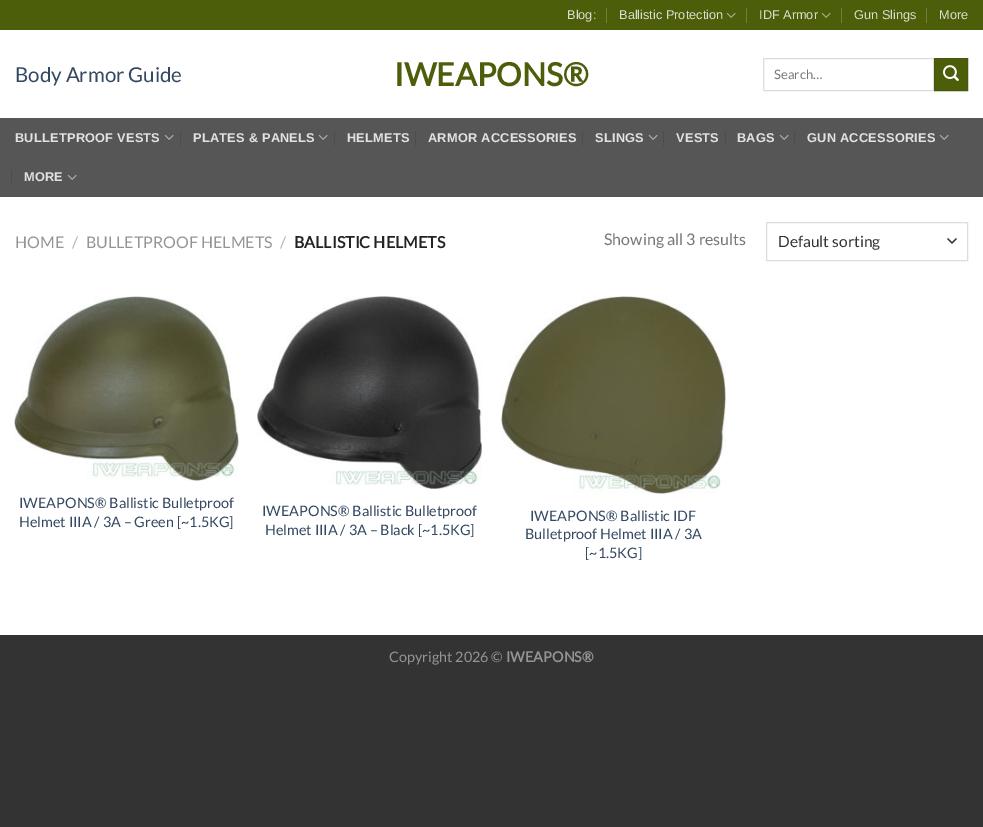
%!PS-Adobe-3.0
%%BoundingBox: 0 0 983 827
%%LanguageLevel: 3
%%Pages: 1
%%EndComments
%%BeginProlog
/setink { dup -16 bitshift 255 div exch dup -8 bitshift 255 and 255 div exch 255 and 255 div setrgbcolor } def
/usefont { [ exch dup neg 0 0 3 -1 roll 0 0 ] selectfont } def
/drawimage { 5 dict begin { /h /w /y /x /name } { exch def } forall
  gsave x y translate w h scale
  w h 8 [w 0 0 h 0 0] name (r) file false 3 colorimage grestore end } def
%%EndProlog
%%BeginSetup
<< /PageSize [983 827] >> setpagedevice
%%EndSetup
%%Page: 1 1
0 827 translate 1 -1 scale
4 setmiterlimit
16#333333 setink
0 0 983 827 rectfill
16#FFFFFF setink
0 30 983 605 rectfill
16#4D5E0B setink
0 0 983 30 rectfill
/LiberationSans-Regular 12.75 usefont
16#DBDFCE setink
567 19 moveto (Blog:) show
16#717E3C setink
606 8 1 15 rectfill
16#DBDFCE setink
619 19 moveto (Ballistic Protection) show
(img1.raw) 726 12 10 6 drawimage
16#717E3C setink
746 8 1 15 rectfill
16#DBDFCE setink
759 19 moveto (IDF Armor) show
(img1.raw) 821 12 10 6 drawimage
16#717E3C setink
841 8 1 15 rectfill
16#DBDFCE setink
854 19 moveto (Gun Slings) show
16#717E3C setink
926 8 1 15 rectfill
16#DBDFCE setink
939 19 moveto (More) show
/Lato-Regular 20.5 usefont
16#334862 setink
15 82 moveto (Body Armor Guide) show
/Lato-Bold 32 usefont
16#4D5E0B setink
394 86 moveto (IWEAPONS®) show
16#DDDDDD setink
763.5 58.5 170 32 rectstroke
/Lato-Regular 13 usefont
16#777777 setink
774 79 moveto (Search…) show
16#4D5E0B setink
934.5 58.5 moveto 967.5 58.5 lineto 967.5 90.5 lineto 934.5 90.5 lineto closepath gsave fill grestore
16#49590A setink
stroke
(img2.raw) 943 65 16 16 drawimage
16#565656 setink
0 118 983 79 rectfill
16#595959 setink
15 118 953 1 rectfill
/LiberationSans-Bold 12.75 usefont
16#E2E2E2 setink
15 142 moveto 0.25 0 (BULLETPROOF VESTS) ashow
(img3.raw) 164 134 10 6 drawimage
16#4D4D4D setink
180 131 1 15 rectfill
16#E2E2E2 setink
193 142 moveto 0.25 0 (PLATES & PANELS) ashow
(img3.raw) 318 134 10 6 drawimage
16#4D4D4D setink
334 131 1 15 rectfill
16#E2E2E2 setink
347 142 moveto 0.25 0 (HELMETS) ashow
16#4D4D4D setink
415 131 1 15 rectfill
16#E2E2E2 setink
428 142 moveto 0.25 0 (ARMOR ACCESSORIES) ashow
16#4D4D4D setink
582 131 1 15 rectfill
16#E2E2E2 setink
595 142 moveto 0.25 0 (SLINGS) ashow
(img3.raw) 648 134 10 6 drawimage
16#4D4D4D setink
663 131 1 15 rectfill
16#E2E2E2 setink
676 142 moveto 0.25 0 (VESTS) ashow
16#4D4D4D setink
725 131 1 15 rectfill
16#E2E2E2 setink
737 142 moveto 0.25 0 (BAGS) ashow
(img3.raw) 779 134 10 6 drawimage
16#4D4D4D setink
794 131 1 15 rectfill
16#E2E2E2 setink
807 142 moveto 0.25 0 (GUN ACCESSORIES) ashow
(img3.raw) 939 134 10 6 drawimage
16#4D4D4D setink
11 170 1 15 rectfill
16#E2E2E2 setink
24 181 moveto 0.25 0 (MORE) ashow
(img3.raw) 67 174 10 6 drawimage
/Lato-Regular 16 usefont
16#949494 setink
15 248 moveto (HOME) show
16#B2B2B2 setink
72 248 moveto (/) show
16#949494 setink
86 248 moveto (BULLETPROOF HELMETS) show
16#B2B2B2 setink
280 248 moveto (/) show
/Lato-Bold 16 usefont
16#222222 setink
294 248 moveto (BALLISTIC HELMETS) show
/Lato-Regular 16 usefont
16#777777 setink
604 245 moveto (Showing all 3 results) show
16#333333 setink
1.3 setlinewidth
1 setlinecap
1 setlinejoin
948 239 moveto 952 243 lineto 956 239 lineto stroke
16#DDDDDD setink
1 setlinewidth
0 setlinecap
0 setlinejoin
766.5 222.5 201 38 rectstroke
/Lato-Regular 15.5 usefont
16#333333 setink
778 247 moveto (Default sorting) show
(img4.raw) 14 296 225 185 drawimage
/Lato-Regular 14.4 usefont
16#334862 setink
19 508 moveto (IWEAPONS® Ballistic Bulletproof) show
19 527 moveto (Helmet IIIA / 3A – Green [~1.5KG]) show
(img5.raw) 257 296 225 193 drawimage
262 516 moveto (IWEAPONS® Ballistic Bulletproof) show
265 535 moveto (Helmet IIIA / 3A – Black [~1.5KG]) show
(img6.raw) 501 296 225 198 drawimage
[
    [(IWEAPONS® Ballistic IDF) 530 521]
    [(Bulletproof Helmet IIIA / 3A) 525 539]
    [([~1.5KG]) 585 558]
] { aload pop moveto show } forall
16#949494 setink
389 662 moveto (Copyright 2026 ©) show
/Lato-Bold 14.4 usefont
506 662 moveto (IWEAPONS®) show
showpage
%%EOF
